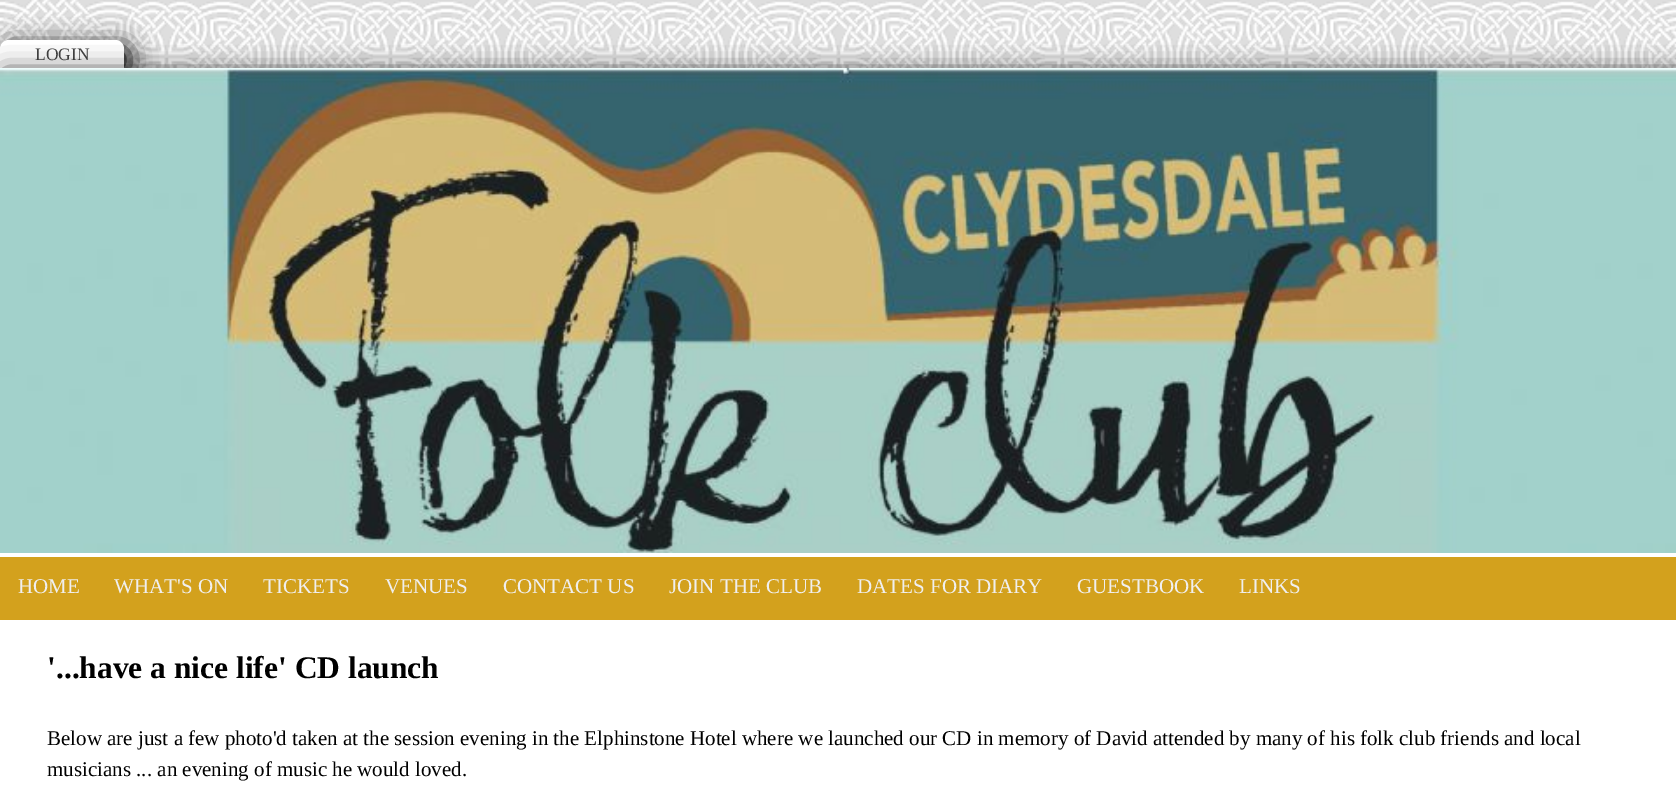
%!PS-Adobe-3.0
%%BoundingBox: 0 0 1676 809
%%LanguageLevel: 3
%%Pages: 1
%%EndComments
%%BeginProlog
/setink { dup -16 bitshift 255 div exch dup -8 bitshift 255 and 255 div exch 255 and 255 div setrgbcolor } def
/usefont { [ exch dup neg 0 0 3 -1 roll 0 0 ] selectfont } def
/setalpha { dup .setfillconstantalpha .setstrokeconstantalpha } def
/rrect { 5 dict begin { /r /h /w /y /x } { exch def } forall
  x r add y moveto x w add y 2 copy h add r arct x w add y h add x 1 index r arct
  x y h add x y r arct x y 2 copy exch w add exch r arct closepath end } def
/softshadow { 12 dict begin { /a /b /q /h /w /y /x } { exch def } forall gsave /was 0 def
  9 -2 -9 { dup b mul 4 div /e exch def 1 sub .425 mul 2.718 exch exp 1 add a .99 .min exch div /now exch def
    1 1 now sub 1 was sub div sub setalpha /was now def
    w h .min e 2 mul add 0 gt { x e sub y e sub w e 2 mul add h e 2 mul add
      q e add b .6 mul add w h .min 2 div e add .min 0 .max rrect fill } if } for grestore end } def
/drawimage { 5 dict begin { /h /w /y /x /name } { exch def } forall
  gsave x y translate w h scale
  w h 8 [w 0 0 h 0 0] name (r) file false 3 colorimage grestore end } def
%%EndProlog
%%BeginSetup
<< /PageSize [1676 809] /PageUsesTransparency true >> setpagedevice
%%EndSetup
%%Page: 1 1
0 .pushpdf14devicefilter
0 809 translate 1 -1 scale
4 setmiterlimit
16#FFFFFF setink
0 0 1676 809 rectfill
(img1.raw) 0 0 1676 68 drawimage
16#000000 setink
5 46 125 28 9 13 1 softshadow
16#FFFFFF setink
9 40 moveto 115 40 lineto 120 40 124 44 124 49 curveto 124 68 lineto 0 68 lineto 0 49 lineto 0 44 4 40 9 40 curveto closepath fill
/LiberationSerif-Regular 17.5 usefont
16#444444 setink
35 60 moveto (LOGIN) show
16#000000 setink
5 74 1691 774 0 13 1 softshadow
16#FFFFFF setink
0 68 1676 741 rectfill
(img2.raw) 0 68 1676 485 drawimage
(img3.raw) 0 68 1676 1 drawimage
16#D3A11D setink
0 557 1676 63 rectfill
/LiberationSerif-Regular 21 usefont
16#F0EFEF setink
[
    [(HOME) 18 593]
    [(WHAT'S ON) 114 593]
    [(TICKETS) 263 593]
    [(VENUES) 385 593]
    [(CONTACT US) 503 593]
    [(JOIN THE CLUB) 669 593]
    [(DATES FOR DIARY) 857 593]
    [(GUESTBOOK) 1077 593]
    [(LINKS) 1239 593]
] { aload pop moveto show } forall
/LiberationSerif-Bold 31.5 usefont
16#000000 setink
47 678 moveto ('...have a nice life' CD launch) show
/LiberationSerif-Regular 21 usefont
47 745 moveto (Below are just a few photo'd taken at the session evening in the Elphinstone Hotel where we launched our CD in memory of David attended by many of his folk club friends and local) show
47 776 moveto (musicians ... an evening of music he would loved.) show
.poppdf14devicefilter showpage
%%EOF
